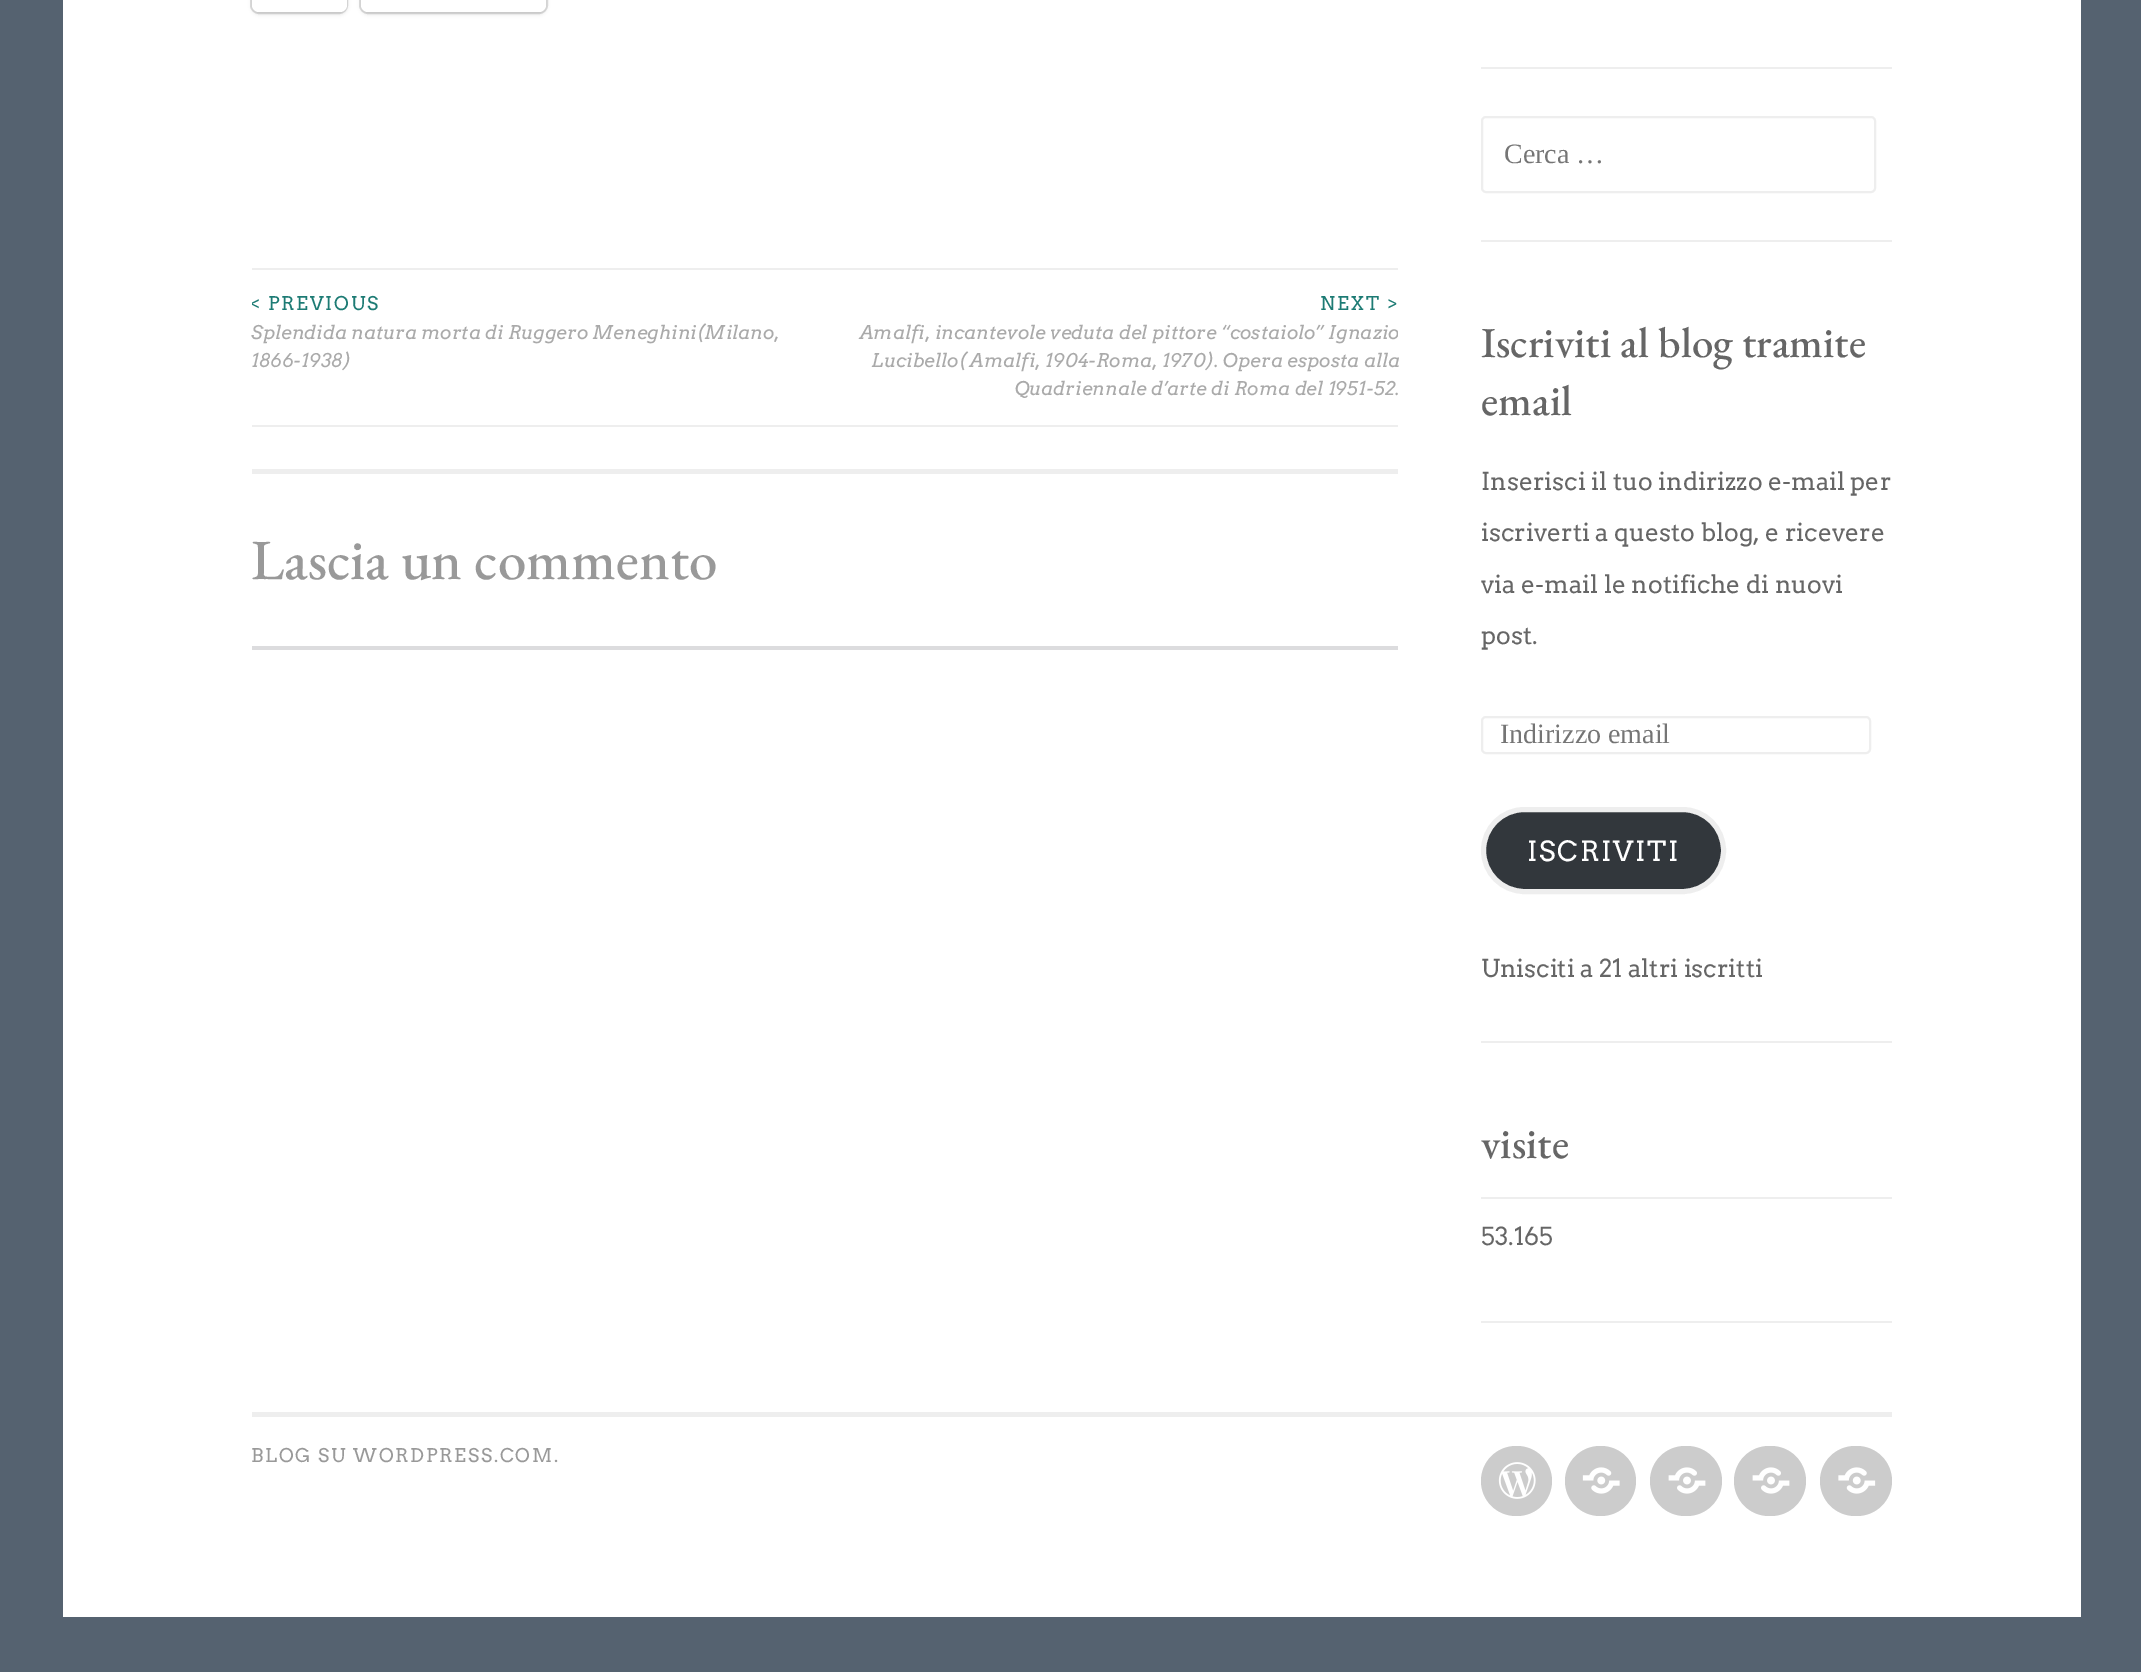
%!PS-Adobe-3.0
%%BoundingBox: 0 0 2141 1672
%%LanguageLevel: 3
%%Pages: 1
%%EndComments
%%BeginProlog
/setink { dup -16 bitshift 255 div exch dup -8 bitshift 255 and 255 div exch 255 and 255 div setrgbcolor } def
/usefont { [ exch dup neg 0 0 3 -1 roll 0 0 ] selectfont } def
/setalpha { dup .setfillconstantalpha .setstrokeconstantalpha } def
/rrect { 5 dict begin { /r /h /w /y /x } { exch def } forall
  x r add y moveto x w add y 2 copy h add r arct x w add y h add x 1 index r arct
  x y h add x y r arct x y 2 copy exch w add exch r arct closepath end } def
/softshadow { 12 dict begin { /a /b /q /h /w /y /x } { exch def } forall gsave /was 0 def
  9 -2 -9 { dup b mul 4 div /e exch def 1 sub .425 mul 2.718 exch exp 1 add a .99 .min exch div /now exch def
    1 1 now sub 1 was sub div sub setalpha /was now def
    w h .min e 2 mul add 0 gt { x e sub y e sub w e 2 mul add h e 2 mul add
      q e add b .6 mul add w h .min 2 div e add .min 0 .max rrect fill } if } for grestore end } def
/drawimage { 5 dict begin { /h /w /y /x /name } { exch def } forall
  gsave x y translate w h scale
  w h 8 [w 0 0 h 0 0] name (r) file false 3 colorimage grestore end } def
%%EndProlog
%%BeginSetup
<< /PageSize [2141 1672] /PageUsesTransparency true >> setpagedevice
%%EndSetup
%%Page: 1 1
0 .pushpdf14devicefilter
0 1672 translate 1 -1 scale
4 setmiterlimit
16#556270 setink
0 0 2141 1672 rectfill
16#FFFFFF setink
63 0 2018 1617 rectfill
16#E0E0E0 setink
2 setlinewidth
251 -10 96 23 8 rrect stroke
16#000000 setink
252 -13 95 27 7 2 0.12 softshadow
16#FFFFFF setink
252 -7 95 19 7 rrect fill
16#E0E0E0 setink
360 -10 187 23 8 rrect stroke
16#000000 setink
361 -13 185 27 7 2 0.12 softshadow
16#FFFFFF setink
361 -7 185 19 7 rrect fill
16#EEEEEE setink
252 268 1146 2 rectfill
252 425 1146 2 rectfill
gsave
252 270 1146 155 rectclip
/Arvo-Regular 18.85 usefont
16#1D7B74 setink
251 310 moveto 1.75 0 (< PREVIOUS) ashow
grestore
/Arvo-Italic 18.85 usefont
16#AAAAAA setink
251 339 moveto (Splendida natura morta di Ruggero Meneghini\(Milano,) show
251 367 moveto (1866-1938\)) show
/Arvo-Regular 18.85 usefont
16#1D7B74 setink
1320 310 moveto 1.75 0 (NEXT >) ashow
gsave
252 270 1146 155 rectclip
/Arvo-Italic 18.85 usefont
16#AAAAAA setink
860 339 moveto (Amalfi, incantevole veduta del pittore “costaiolo” Ignazio) show
grestore
/Arvo-Italic 18.85 usefont
16#AAAAAA setink
871 367 moveto (Lucibello\( Amalfi, 1904-Roma, 1970\). Opera esposta alla) show
1015 395 moveto (Quadriennale d’arte di Roma del 1951-52.) show
16#EEEEEE setink
252 469 1146 5 rectfill
/EBGaramond-Medium 57 usefont
16#999999 setink
251 579 moveto (Lascia un commento) show
[
    [252 646 1146 4 16#DCDCDE]
    [1481 67 411 2 16#EEEEEE]
    [1481 240 411 2 16#EEEEEE]
] { aload pop setink rectfill } forall
1482 117 393 75 4 rrect stroke
/LiberationSerif-Regular 28 usefont
16#757575 setink
1504 163 moveto (Cerca …) show
16#EEEEEE setink
1481 1041 411 2 rectfill
/EBGaramond-Medium 42.9 usefont
16#666666 setink
1481 357 moveto (Iscriviti al blog tramite) show
1481 415 moveto (email) show
/Arvo-Regular 24.7 usefont
[
    [(Inserisci il tuo indirizzo e-mail per) 1481 490]
    [(iscriverti a questo blog, e ricevere) 1481 541]
    [(via e-mail le notifiche di nuovi) 1481 593]
    [(post.) 1481 644]
] { aload pop moveto show } forall
16#EEEEEE setink
1482 717 388 36 4 rrect stroke
/LiberationSerif-Regular 28 usefont
16#757575 setink
1500 743 moveto (Indirizzo email) show
16#32373C setink
1483.5 809.5 240 82 41 rrect gsave fill grestore
16#EEEEEE setink
5 setlinewidth
stroke
/Arvo-Regular 27.75 usefont
16#FFFFFF setink
1527 861 moveto 1.75 0 (ISCRIVITI) ashow
/Arvo-Regular 24.7 usefont
16#666666 setink
1481 977 moveto (Unisciti a 21 altri iscritti) show
16#EEEEEE setink
1481 1321 411 2 rectfill
/EBGaramond-Medium 42.9 usefont
16#666666 setink
1481 1158 moveto (visite) show
16#EEEEEE setink
1481 1197 411 2 rectfill
/Arvo-Regular 24.7 usefont
16#666666 setink
1481 1245 moveto (53.165) show
16#EEEEEE setink
252 1412 1640 5 rectfill
/Arvo-Regular 18.85 usefont
16#999999 setink
251 1462 moveto 1.75 0 (BLOG SU WORDPRESS.COM.) ashow
16#CCCCCC setink
1481 1446 71 70 35 rrect fill
(img1.raw) 1498 1462 38 37 drawimage
1565 1446 71 70 35 rrect fill
(img2.raw) 1582 1467 38 27 drawimage
1650 1446 72 70 35 rrect fill
(img3.raw) 1668 1467 38 27 drawimage
1734 1446 72 70 35 rrect fill
(img3.raw) 1752 1467 38 27 drawimage
1820 1446 72 70 35 rrect fill
(img4.raw) 1838 1467 38 27 drawimage
.poppdf14devicefilter showpage
%%EOF
